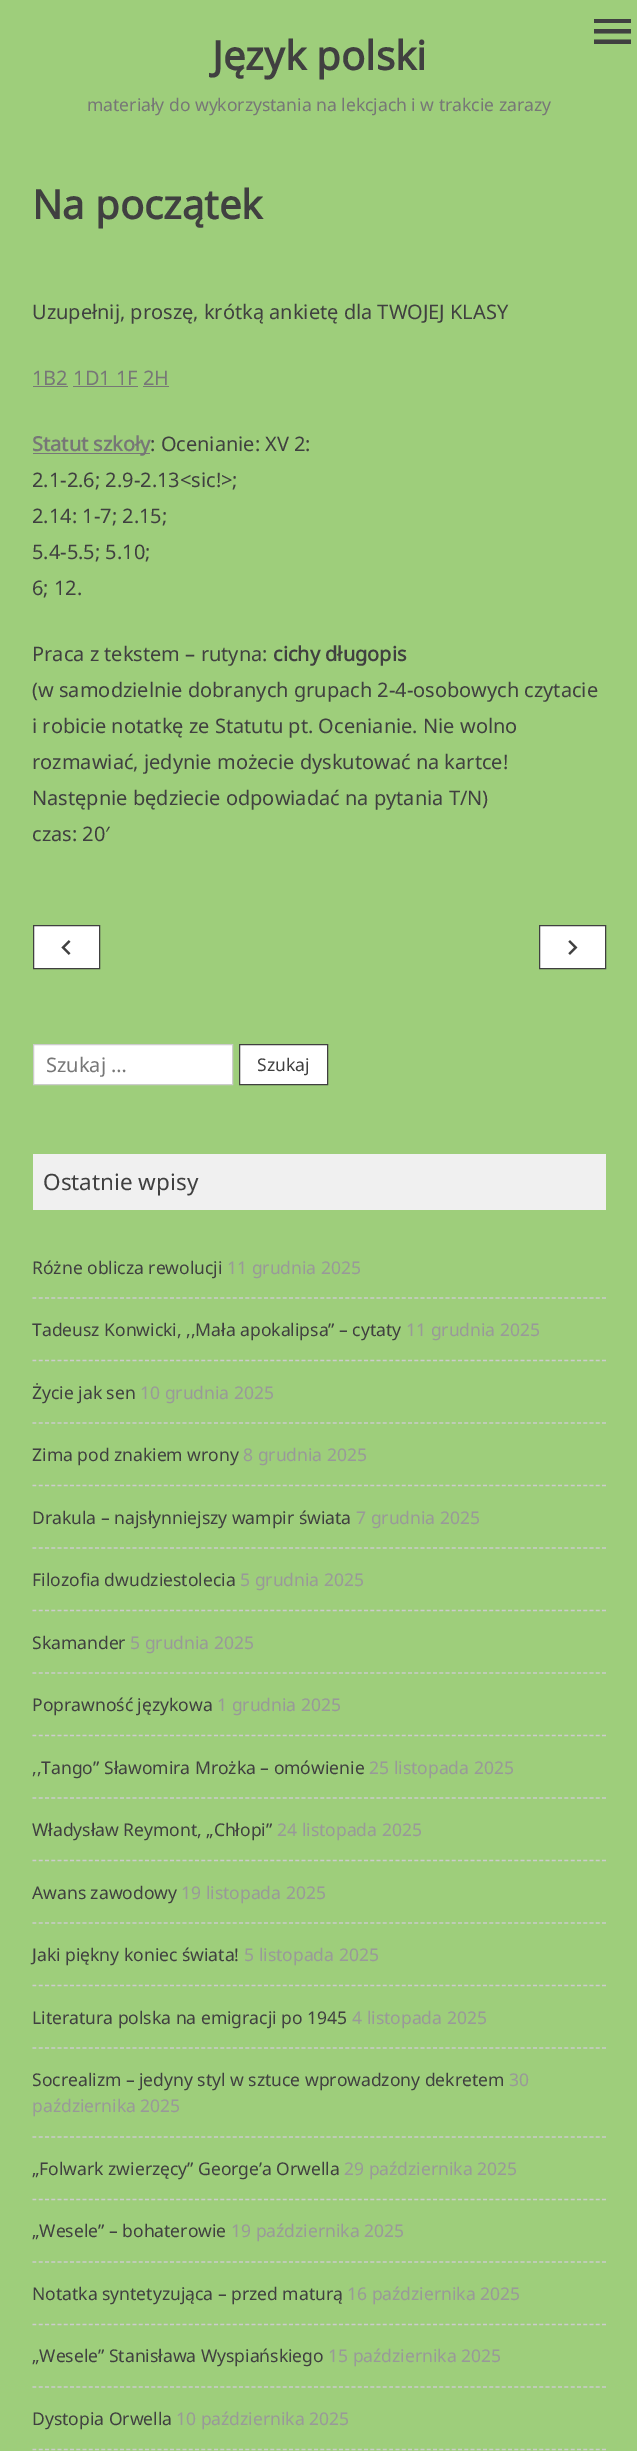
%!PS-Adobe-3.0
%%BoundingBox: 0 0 637 2451
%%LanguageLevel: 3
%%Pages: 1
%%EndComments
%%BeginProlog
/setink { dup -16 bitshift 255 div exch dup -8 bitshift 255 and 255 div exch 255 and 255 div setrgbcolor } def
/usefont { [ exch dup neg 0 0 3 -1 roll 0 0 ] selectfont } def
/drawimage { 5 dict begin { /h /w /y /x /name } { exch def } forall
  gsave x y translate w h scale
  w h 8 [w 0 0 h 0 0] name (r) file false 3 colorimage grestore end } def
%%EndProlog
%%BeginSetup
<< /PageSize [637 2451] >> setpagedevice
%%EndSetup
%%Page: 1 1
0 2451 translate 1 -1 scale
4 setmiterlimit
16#9ECE7B setink
0 0 637 2451 rectfill
16#404040 setink
594 19 moveto 631 19 lineto 631 23 lineto 594 23 lineto closepath 594 33.5 moveto 594 29 lineto 631 29 lineto 631 33.5 lineto closepath 594 44 moveto 594 39.5 lineto 631 39.5 lineto 631 44 lineto closepath fill
/NotoSans-Bold 40 usefont
212 70 moveto (Język polski) show
/NotoSans-Regular 17.5 usefont
16#777777 setink
87 111 moveto (materiały do wykorzystania na lekcjach i w trakcie zarazy) show
/NotoSans-Bold 40 usefont
16#404040 setink
32 219 moveto (Na początek) show
/NotoSans-Regular 20 usefont
32 319 moveto (Uzupełnij, proszę, krótką ankietę dla TWOJEJ KLASY) show
16#777777 setink
32 385 moveto (1B2 1D1 1F 2H) show
[
    [33 386 35 1 16#777777]
    [73 386 65 1 16#777777]
    [143 386 26 1 16#777777]
    [33 453 117 1 16#777777]
] { aload pop setink rectfill } forall
/NotoSans-Bold 20 usefont
32 451 moveto (Statut szkoły) show
/NotoSans-Regular 20 usefont
16#404040 setink
[
    [(: Ocenianie: XV 2:) 150 451]
    [(2.1-2.6; 2.9-2.13<sic!>;) 32 487]
    [(2.14: 1-7; 2.15;) 32 523]
    [(5.4-5.5; 5.10;) 32 559]
    [(6; 12.) 32 595]
    [(Praca z tekstem – rutyna:) 32 661]
] { aload pop moveto show } forall
/NotoSans-Bold 20 usefont
273 661 moveto (cichy długopis) show
/NotoSans-Regular 20 usefont
[
    [(\(w samodzielnie dobranych grupach 2-4-osobowych czytacie) 32 697]
    [(i robicie notatkę ze Statutu pt. Ocenianie. Nie wolno) 32 733]
    [(rozmawiać, jedynie możecie dyskutować na kartce!) 32 769]
    [(Następnie będziecie odpowiadać na pytania T/N\)) 32 805]
    [(czas: 20′) 32 841]
] { aload pop moveto show } forall
16#FFFFFF setink
33.5 925.5 moveto 99.5 925.5 lineto 99.5 968.5 lineto 33.5 968.5 lineto closepath gsave fill grestore
16#404040 setink
stroke
(img1.raw) 61 940 10 15 drawimage
16#FFFFFF setink
539.5 925.5 moveto 605.5 925.5 lineto 605.5 968.5 lineto 539.5 968.5 lineto closepath gsave fill grestore
16#404040 setink
stroke
(img2.raw) 568 940 10 15 drawimage
16#FFFFFF setink
33.5 1044.5 moveto 232.5 1044.5 lineto 232.5 1084.5 lineto 33.5 1084.5 lineto closepath gsave fill grestore
16#CCCCCC setink
stroke
16#777777 setink
46 1072 moveto (Szukaj …) show
16#FFFFFF setink
239.5 1044.5 moveto 327.5 1044.5 lineto 327.5 1084.5 lineto 239.5 1084.5 lineto closepath gsave fill grestore
16#404040 setink
stroke
/NotoSans-Regular 17.5 usefont
257 1071 moveto (Szukaj) show
16#F0F0F0 setink
33 1154 573 56 rectfill
/NotoSans-Regular 22.5 usefont
16#404040 setink
43 1190 moveto (Ostatnie wpisy) show
/NotoSans-Regular 17.5 usefont
32 1274 moveto (Różne oblicza rewolucji) show
16#999999 setink
227 1274 moveto (11 grudnia 2025) show
16#CCCCCC setink
1.2 setlinewidth
[3.75 2.51] 0 setdash
32.5 1298 moveto 606 1298 lineto stroke
16#404040 setink
32 1336 moveto (Tadeusz Konwicki, ,,Mała apokalipsa” – cytaty) show
16#999999 setink
406 1336 moveto (11 grudnia 2025) show
16#CCCCCC setink
32.5 1360.5 moveto 606 1360.5 lineto stroke
16#404040 setink
32 1399 moveto (Życie jak sen) show
16#999999 setink
140 1399 moveto (10 grudnia 2025) show
16#CCCCCC setink
32.5 1423 moveto 606 1423 lineto stroke
16#404040 setink
32 1461 moveto (Zima pod znakiem wrony) show
16#999999 setink
243 1461 moveto (8 grudnia 2025) show
16#CCCCCC setink
32.5 1485.5 moveto 606 1485.5 lineto stroke
16#404040 setink
32 1524 moveto (Drakula – najsłynniejszy wampir świata) show
16#999999 setink
356 1524 moveto (7 grudnia 2025) show
16#CCCCCC setink
32.5 1548 moveto 606 1548 lineto stroke
16#404040 setink
32 1586 moveto (Filozofia dwudziestolecia) show
16#999999 setink
240 1586 moveto (5 grudnia 2025) show
16#CCCCCC setink
32.5 1610.5 moveto 606 1610.5 lineto stroke
16#404040 setink
32 1649 moveto (Skamander) show
16#999999 setink
130 1649 moveto (5 grudnia 2025) show
16#CCCCCC setink
32.5 1673 moveto 606 1673 lineto stroke
16#404040 setink
32 1711 moveto (Poprawność językowa) show
16#999999 setink
217 1711 moveto (1 grudnia 2025) show
16#CCCCCC setink
32.5 1735.5 moveto 606 1735.5 lineto stroke
16#404040 setink
32 1774 moveto (,,Tango” Sławomira Mrożka – omówienie) show
16#999999 setink
369 1774 moveto (25 listopada 2025) show
16#CCCCCC setink
32.5 1798 moveto 606 1798 lineto stroke
16#404040 setink
32 1836 moveto (Władysław Reymont, „Chłopi”) show
16#999999 setink
277 1836 moveto (24 listopada 2025) show
16#CCCCCC setink
32.5 1860.5 moveto 606 1860.5 lineto stroke
16#404040 setink
32 1899 moveto (Awans zawodowy) show
16#999999 setink
181 1899 moveto (19 listopada 2025) show
16#CCCCCC setink
32.5 1923 moveto 606 1923 lineto stroke
16#404040 setink
32 1961 moveto (Jaki piękny koniec świata!) show
16#999999 setink
244 1961 moveto (5 listopada 2025) show
16#CCCCCC setink
32.5 1985.5 moveto 606 1985.5 lineto stroke
16#404040 setink
32 2024 moveto (Literatura polska na emigracji po 1945) show
16#999999 setink
352 2024 moveto (4 listopada 2025) show
16#CCCCCC setink
32.5 2048 moveto 606 2048 lineto stroke
16#404040 setink
32 2086 moveto (Socrealizm – jedyny styl w sztuce wprowadzony dekretem) show
16#999999 setink
509 2086 moveto (30) show
32 2112 moveto (października 2025) show
16#CCCCCC setink
32.5 2137 moveto 606 2137 lineto stroke
16#404040 setink
32 2175 moveto („Folwark zwierzęcy” George’a Orwella) show
16#999999 setink
344 2175 moveto (29 października 2025) show
16#CCCCCC setink
32.5 2199.5 moveto 606 2199.5 lineto stroke
16#404040 setink
32 2237 moveto („Wesele” – bohaterowie) show
16#999999 setink
231 2237 moveto (19 października 2025) show
16#CCCCCC setink
32.5 2262 moveto 606 2262 lineto stroke
16#404040 setink
32 2300 moveto (Notatka syntetyzująca – przed maturą) show
16#999999 setink
347 2300 moveto (16 października 2025) show
16#CCCCCC setink
32.5 2324.5 moveto 606 2324.5 lineto stroke
16#404040 setink
32 2362 moveto („Wesele” Stanisława Wyspiańskiego) show
16#999999 setink
328 2362 moveto (15 października 2025) show
16#CCCCCC setink
32.5 2387 moveto 606 2387 lineto stroke
16#404040 setink
32 2425 moveto (Dystopia Orwella) show
16#999999 setink
176 2425 moveto (10 października 2025) show
16#CCCCCC setink
32.5 2449.5 moveto 606 2449.5 lineto stroke
showpage
%%EOF
